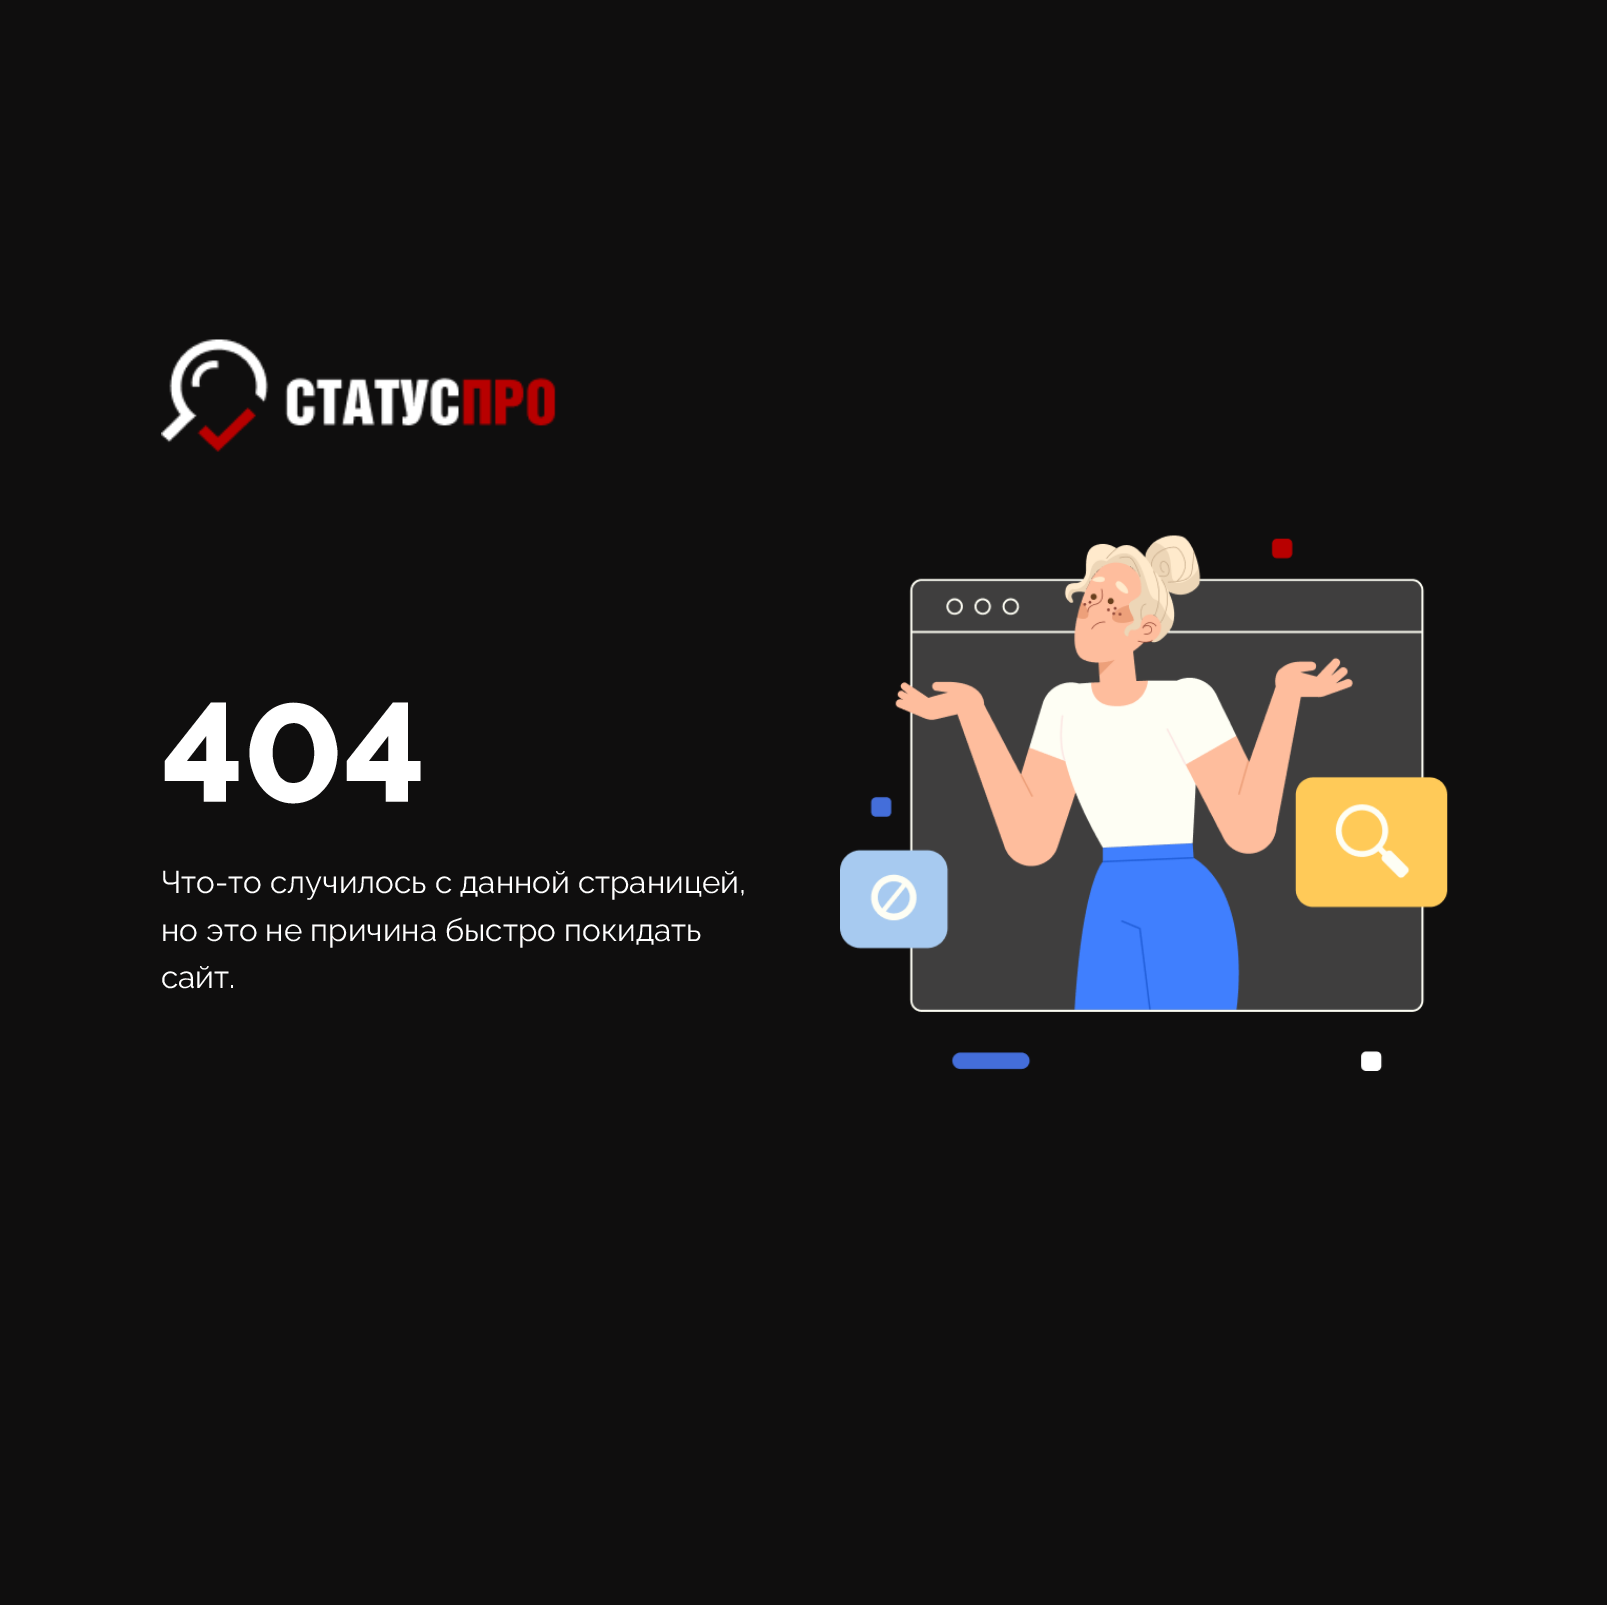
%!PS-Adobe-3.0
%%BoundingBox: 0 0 1607 1605
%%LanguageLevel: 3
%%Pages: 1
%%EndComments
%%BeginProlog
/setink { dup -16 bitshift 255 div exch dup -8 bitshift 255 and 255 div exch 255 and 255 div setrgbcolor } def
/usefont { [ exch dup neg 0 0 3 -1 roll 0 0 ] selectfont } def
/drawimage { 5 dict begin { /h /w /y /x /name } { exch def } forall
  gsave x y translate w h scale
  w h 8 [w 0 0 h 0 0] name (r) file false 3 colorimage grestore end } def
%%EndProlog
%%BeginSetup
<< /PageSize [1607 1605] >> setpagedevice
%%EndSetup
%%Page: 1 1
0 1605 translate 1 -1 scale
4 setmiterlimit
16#0F0E0E setink
0 0 1607 1605 rectfill
(img1.raw) 161 339 395 113 drawimage
/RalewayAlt-ExtraBold 140 usefont
16#FFFFFF setink
161 802 moveto (404) show
/Raleway-Regular 31.5 usefont
[
    [(Что-то случилось с данной страницей,) 161 893]
    [(но это не причина быстро покидать) 161 941]
    [(сайт.) 161 988]
] { aload pop moveto show } forall
(img2.raw) 840 535 608 536 drawimage
showpage
%%EOF
